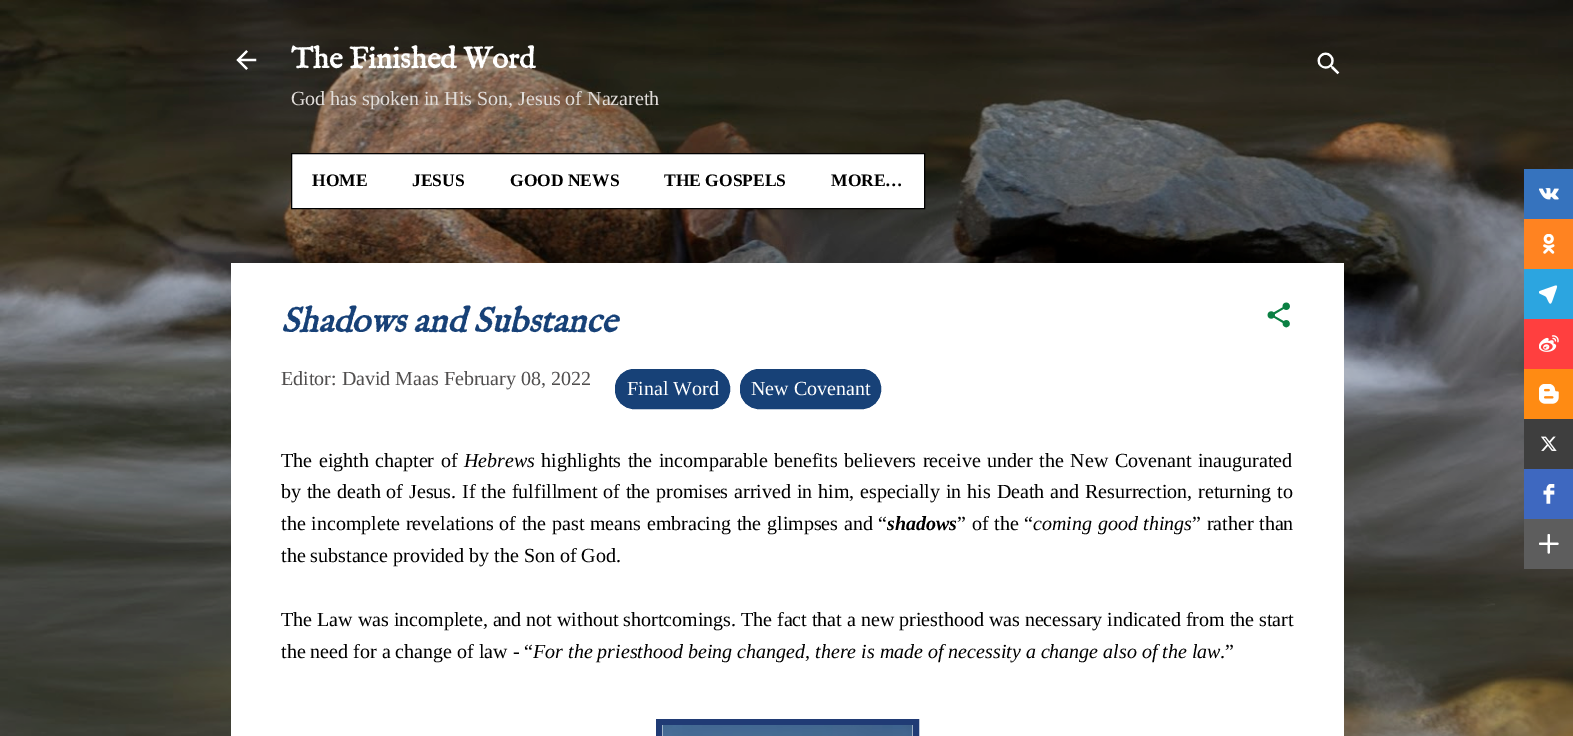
%!PS-Adobe-3.0
%%BoundingBox: 0 0 1573 736
%%LanguageLevel: 3
%%Pages: 1
%%EndComments
%%BeginProlog
/setink { dup -16 bitshift 255 div exch dup -8 bitshift 255 and 255 div exch 255 and 255 div setrgbcolor } def
/usefont { [ exch dup neg 0 0 3 -1 roll 0 0 ] selectfont } def
/rrect { 5 dict begin { /r /h /w /y /x } { exch def } forall
  x r add y moveto x w add y 2 copy h add r arct x w add y h add x 1 index r arct
  x y h add x y r arct x y 2 copy exch w add exch r arct closepath end } def
/drawimage { 5 dict begin { /h /w /y /x /name } { exch def } forall
  gsave x y translate w h scale
  w h 8 [w 0 0 h 0 0] name (r) file false 3 colorimage grestore end } def
%%EndProlog
%%BeginSetup
<< /PageSize [1573 736] >> setpagedevice
%%EndSetup
%%Page: 1 1
0 736 translate 1 -1 scale
4 setmiterlimit
16#FFFFFF setink
0 0 1573 736 rectfill
(img1.raw) 0 0 1573 736 drawimage
(img2.raw) 236 50 21 20 drawimage
/IMFELLEnglish-Bold 30 usefont
291 68 moveto (The Finished Word) show
/LiberationSerif-Regular 20 usefont
16#E1DDDA setink
291 105 moveto (God has spoken in His Son, Jesus of Nazareth) show
16#FFFFFF setink
291.5 153.5 moveto 924.5 153.5 lineto 924.5 208.5 lineto 291.5 208.5 lineto closepath gsave fill grestore
16#000000 setink
stroke
/LiberationSerif-Bold 17.5 usefont
[
    [(HOME) 312 186]
    [(JESUS) 412 186]
    [(GOOD NEWS) 510 186]
    [(THE GOSPELS) 664 186]
    [(MORE…) 831 186]
] { aload pop moveto show } forall
(img3.raw) 1317 52 23 23 drawimage
16#FFFFFF setink
231 263 1113 473 rectfill
/IMFELLEnglish-BoldItalic 35 usefont
16#174177 setink
281 332 moveto (Shadows and Substance) show
(img4.raw) 1267 302 23 26 drawimage
/LiberationSerif-Regular 20 usefont
16#504E4E setink
281 385 moveto (Editor: David Maas February 08, 2022) show
16#174177 setink
615.5 369.5 114 39 18.5 rrect gsave fill grestore
stroke
16#FFFFFF setink
627 395 moveto (Final Word) show
16#174177 setink
740.5 369.5 140 39 18.5 rrect gsave fill grestore
stroke
16#FFFFFF setink
751 395 moveto (New Covenant) show
16#000000 setink
281 467 moveto 1.6 0 32 (The eighth chapter of) widthshow
/LiberationSerif-Italic 20 usefont
464 467 moveto (Hebrews) show
/LiberationSerif-Regular 20 usefont
541 467 moveto 1.6 0 32 (highlights the incomparable benefits believers receive under the New Covenant inaugurated) widthshow
281 498 moveto 0.9 0 32 (by the death of Jesus. If the fulfillment of the promises arrived in him, especially in his Death and Resurrection, returning to) widthshow
281 530 moveto 0.75 0 32 (the incomplete revelations of the past means embracing the glimpses and “) widthshow
/LiberationSerif-BoldItalic 20 usefont
887 530 moveto (shadows) show
/LiberationSerif-Regular 20 usefont
957 530 moveto 0.75 0 32 (” of the “) widthshow
/LiberationSerif-Italic 20 usefont
1033 530 moveto 0.75 0 32 (coming good things) widthshow
/LiberationSerif-Regular 20 usefont
1192 530 moveto 0.75 0 32 (” rather than) widthshow
[
    [(the substance provided by the Son of God.) 281 562]
    [(The Law was incomplete, and not without shortcomings. The fact that a new priesthood was necessary indicated from the start) 281 626]
    [(the need for a change of law - “) 281 658]
] { aload pop moveto show } forall
/LiberationSerif-Italic 20 usefont
533 658 moveto (For the priesthood being changed, there is made of necessity a change also of the law) show
/LiberationSerif-Regular 20 usefont
1220 658 moveto (.”) show
16#203B75 setink
6 setlinewidth
659 722 257 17 rectstroke
(img5.raw) 662 725 251 11 drawimage
16#3673BE setink
1524 169 49 50 rectfill
(img6.raw) 1539 188 20 12 drawimage
16#FF8321 setink
1524 219 49 50 rectfill
(img7.raw) 1543 234 12 20 drawimage
16#2CA5E0 setink
1524 269 49 50 rectfill
(img8.raw) 1539 285 19 19 drawimage
16#FF3F3F setink
1524 319 49 50 rectfill
(img9.raw) 1539 335 20 17 drawimage
16#FF8B13 setink
1524 369 49 50 rectfill
(img10.raw) 1539 384 20 20 drawimage
16#3E3E3E setink
1524 419 49 50 rectfill
(img11.raw) 1541 436 16 15 drawimage
16#3E68C0 setink
1524 469 49 50 rectfill
(img12.raw) 1543 484 12 20 drawimage
16#5D5D5D setink
1524 519 49 50 rectfill
(img13.raw) 1539 534 20 20 drawimage
showpage
%%EOF
